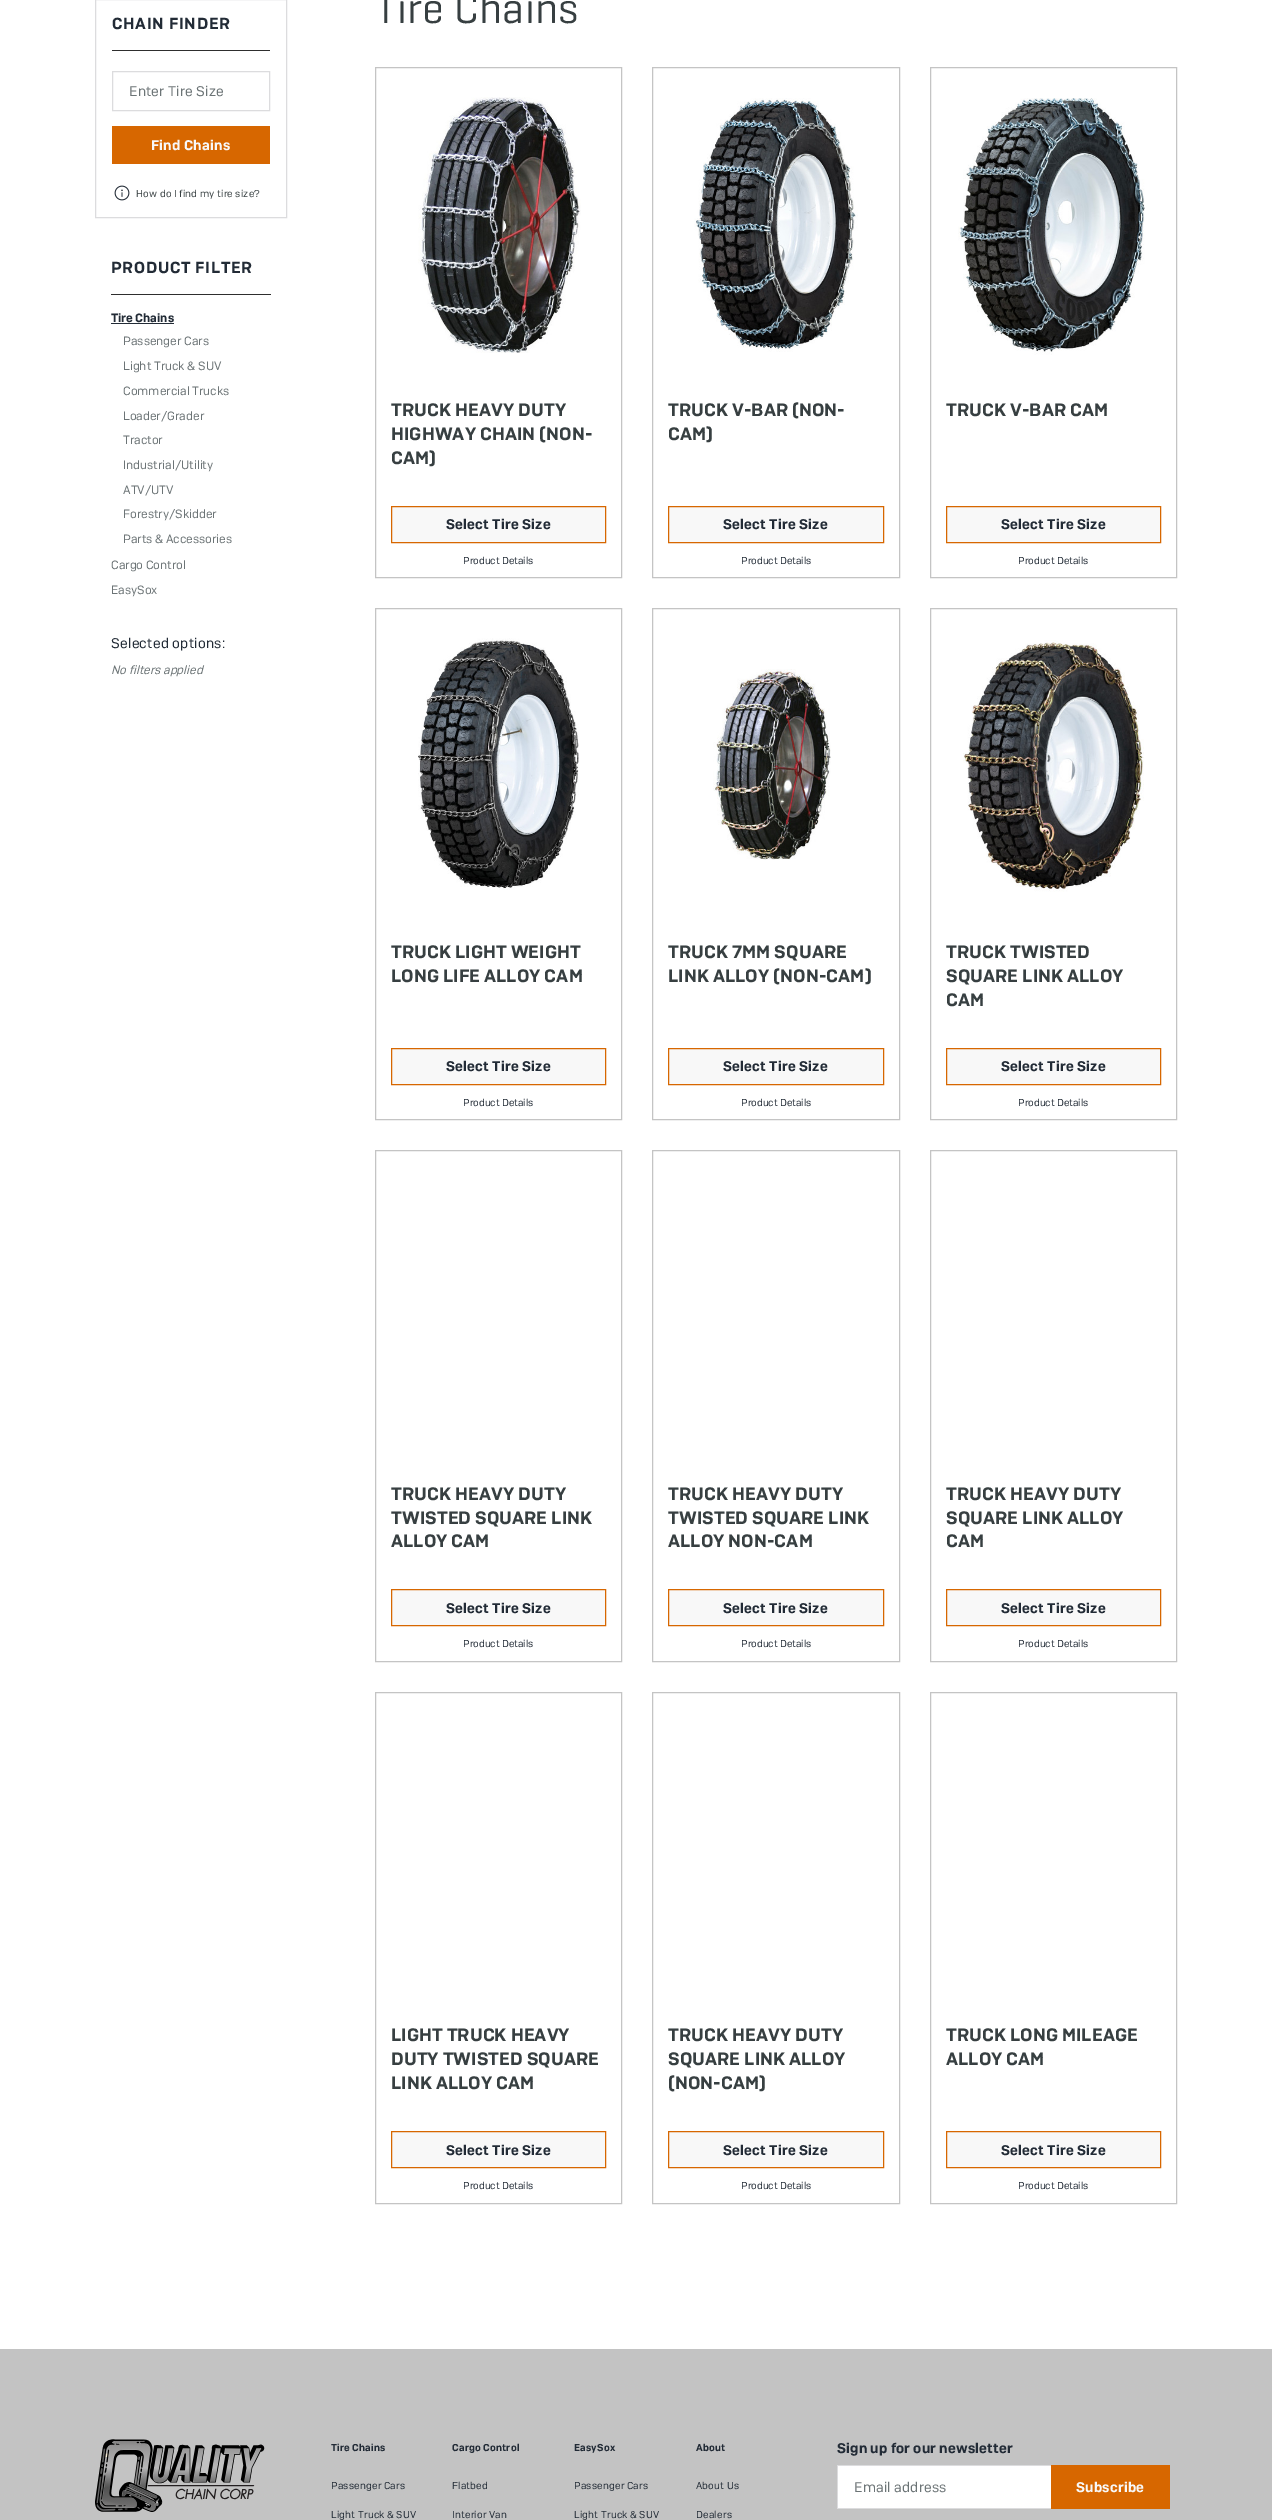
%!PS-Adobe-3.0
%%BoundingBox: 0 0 1272 2520
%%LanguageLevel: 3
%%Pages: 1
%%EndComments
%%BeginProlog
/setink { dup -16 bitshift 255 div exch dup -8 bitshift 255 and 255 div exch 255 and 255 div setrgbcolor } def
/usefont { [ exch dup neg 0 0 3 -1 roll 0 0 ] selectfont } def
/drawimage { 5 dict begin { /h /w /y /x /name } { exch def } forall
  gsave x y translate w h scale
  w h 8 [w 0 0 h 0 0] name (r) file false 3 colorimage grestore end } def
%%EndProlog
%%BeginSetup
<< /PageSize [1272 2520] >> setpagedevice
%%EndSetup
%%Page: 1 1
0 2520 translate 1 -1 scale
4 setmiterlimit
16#FFFFFF setink
0 0 1272 2520 rectfill
/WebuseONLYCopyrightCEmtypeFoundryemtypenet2-Regular 44 usefont
16#373F41 setink
375 23 moveto 0.25 0 (Tire Chains) ashow
16#DCDCDE setink
95.5 -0.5 191 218 rectstroke
16#2E2E2E setink
112 50 158 1 rectfill
/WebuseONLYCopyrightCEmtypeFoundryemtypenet-SemiBold 16 usefont
16#222B36 setink
112 29 moveto 0.75 0 (CHAIN FINDER) ashow
16#DCDCDE setink
112.5 71.5 157 39 rectstroke
/WebuseONLYCopyrightCEmtypeFoundryemtypenet-Regular 14 usefont
16#6C7476 setink
129 96 moveto 0.2 0 (Enter Tire Size) ashow
16#D76700 setink
112 126 158 38 rectfill
/WebuseONLYCopyrightCEmtypeFoundryemtypenet-SemiBold 14 usefont
16#F8F8F8 setink
151 150 moveto 0.25 0 (Find Chains) ashow
(img1.raw) 114 185 16 16 drawimage
/WebuseONLYCopyrightCEmtypeFoundryemtypenet-Regular 10 usefont
16#373F41 setink
136 197 moveto 0.2 0 (How do I find my tire size?) ashow
16#2E2E2E setink
111 294 160 1 rectfill
/WebuseONLYCopyrightCEmtypeFoundryemtypenet-SemiBold 16 usefont
16#222B36 setink
111 273 moveto 0.75 0 (PRODUCT FILTER) ashow
/WebuseONLYCopyrightCEmtypeFoundryemtypenet-SemiBold 12 usefont
111 322 moveto (Tire Chains) show
111 323 63 1 rectfill
/WebuseONLYCopyrightCEmtypeFoundryemtypenet-Regular 12 usefont
16#6C7476 setink
[
    [(Passenger Cars) 123 345]
    [(Light Truck & SUV) 123 370]
    [(Commercial Trucks) 123 395]
    [(Loader/Grader) 123 420]
    [(Tractor) 123 444]
    [(Industrial/Utility) 123 469]
    [(ATV/UTV) 123 494]
    [(Forestry/Skidder) 123 518]
    [(Parts & Accessories) 123 543]
    [(Cargo Control) 111 569]
    [(EasySox) 111 594]
] { aload pop moveto show } forall
/WebuseONLYCopyrightCEmtypeFoundryemtypenet-Regular 14 usefont
16#222B36 setink
111 648 moveto 0.25 0 (Selected options:) ashow
/WebuseONLYCopyrightCEmtypeFoundryemtypenet-Italic 12 usefont
16#6C7476 setink
111 674 moveto (No filters applied) show
16#C4C4C4 setink
375.5 67.5 246 510 rectstroke
(img2.raw) 418 97 163 256 drawimage
/WebuseONLYCopyrightCEmtypeFoundryemtypenet-SemiBold 18 usefont
16#373F41 setink
391 416 moveto 0.1 0 (TRUCK HEAVY DUTY) ashow
391 440 moveto 0.1 0 (HIGHWAY CHAIN \(NON-) ashow
391 464 moveto 0.1 0 (CAM\)) ashow
16#F8F8F8 setink
391.5 506.5 moveto 605.5 506.5 lineto 605.5 542.5 lineto 391.5 542.5 lineto closepath gsave fill grestore
16#D76700 setink
stroke
/WebuseONLYCopyrightCEmtypeFoundryemtypenet-SemiBold 14 usefont
16#222B36 setink
446 529 moveto 0.25 0 (Select Tire Size) ashow
/WebuseONLYCopyrightCEmtypeFoundryemtypenet-Regular 10 usefont
463 564 moveto (Product Details) show
16#C4C4C4 setink
652.5 67.5 247 510 rectstroke
(img3.raw) 694 98 164 254 drawimage
/WebuseONLYCopyrightCEmtypeFoundryemtypenet-SemiBold 18 usefont
16#373F41 setink
668 416 moveto 0.1 0 (TRUCK V-BAR \(NON-) ashow
668 440 moveto 0.1 0 (CAM\)) ashow
16#F8F8F8 setink
668.5 506.5 moveto 883.5 506.5 lineto 883.5 542.5 lineto 668.5 542.5 lineto closepath gsave fill grestore
16#D76700 setink
stroke
/WebuseONLYCopyrightCEmtypeFoundryemtypenet-SemiBold 14 usefont
16#222B36 setink
723 529 moveto 0.25 0 (Select Tire Size) ashow
/WebuseONLYCopyrightCEmtypeFoundryemtypenet-Regular 10 usefont
741 564 moveto (Product Details) show
16#C4C4C4 setink
930.5 67.5 246 510 rectstroke
(img4.raw) 958 98 187 257 drawimage
/WebuseONLYCopyrightCEmtypeFoundryemtypenet-SemiBold 18 usefont
16#373F41 setink
946 416 moveto 0.1 0 (TRUCK V-BAR CAM) ashow
16#F8F8F8 setink
946.5 506.5 moveto 1160.5 506.5 lineto 1160.5 542.5 lineto 946.5 542.5 lineto closepath gsave fill grestore
16#D76700 setink
stroke
/WebuseONLYCopyrightCEmtypeFoundryemtypenet-SemiBold 14 usefont
16#222B36 setink
1001 529 moveto 0.25 0 (Select Tire Size) ashow
/WebuseONLYCopyrightCEmtypeFoundryemtypenet-Regular 10 usefont
1018 564 moveto (Product Details) show
16#C4C4C4 setink
375.5 608.5 246 511 rectstroke
(img5.raw) 418 638 161 252 drawimage
/WebuseONLYCopyrightCEmtypeFoundryemtypenet-SemiBold 18 usefont
16#373F41 setink
391 958 moveto 0.1 0 (TRUCK LIGHT WEIGHT) ashow
391 982 moveto 0.1 0 (LONG LIFE ALLOY CAM) ashow
16#F8F8F8 setink
391.5 1048.5 moveto 605.5 1048.5 lineto 605.5 1084.5 lineto 391.5 1084.5 lineto closepath gsave fill grestore
16#D76700 setink
stroke
/WebuseONLYCopyrightCEmtypeFoundryemtypenet-SemiBold 14 usefont
16#222B36 setink
446 1071 moveto 0.25 0 (Select Tire Size) ashow
/WebuseONLYCopyrightCEmtypeFoundryemtypenet-Regular 10 usefont
463 1106 moveto (Product Details) show
16#C4C4C4 setink
652.5 608.5 247 511 rectstroke
(img6.raw) 713 669 118 191 drawimage
/WebuseONLYCopyrightCEmtypeFoundryemtypenet-SemiBold 18 usefont
16#373F41 setink
668 958 moveto 0.1 0 (TRUCK 7MM SQUARE) ashow
668 982 moveto 0.1 0 (LINK ALLOY \(NON-CAM\)) ashow
16#F8F8F8 setink
668.5 1048.5 moveto 883.5 1048.5 lineto 883.5 1084.5 lineto 668.5 1084.5 lineto closepath gsave fill grestore
16#D76700 setink
stroke
/WebuseONLYCopyrightCEmtypeFoundryemtypenet-SemiBold 14 usefont
16#222B36 setink
723 1071 moveto 0.25 0 (Select Tire Size) ashow
/WebuseONLYCopyrightCEmtypeFoundryemtypenet-Regular 10 usefont
741 1106 moveto (Product Details) show
16#C4C4C4 setink
930.5 608.5 246 511 rectstroke
(img7.raw) 963 640 181 252 drawimage
/WebuseONLYCopyrightCEmtypeFoundryemtypenet-SemiBold 18 usefont
16#373F41 setink
946 958 moveto 0.1 0 (TRUCK TWISTED) ashow
946 982 moveto 0.1 0 (SQUARE LINK ALLOY) ashow
946 1006 moveto 0.1 0 (CAM) ashow
16#F8F8F8 setink
946.5 1048.5 moveto 1160.5 1048.5 lineto 1160.5 1084.5 lineto 946.5 1084.5 lineto closepath gsave fill grestore
16#D76700 setink
stroke
/WebuseONLYCopyrightCEmtypeFoundryemtypenet-SemiBold 14 usefont
16#222B36 setink
1001 1071 moveto 0.25 0 (Select Tire Size) ashow
/WebuseONLYCopyrightCEmtypeFoundryemtypenet-Regular 10 usefont
1018 1106 moveto (Product Details) show
16#C4C4C4 setink
375.5 1150.5 246 511 rectstroke
/WebuseONLYCopyrightCEmtypeFoundryemtypenet-SemiBold 18 usefont
16#373F41 setink
391 1500 moveto 0.1 0 (TRUCK HEAVY DUTY) ashow
391 1524 moveto 0.1 0 (TWISTED SQUARE LINK) ashow
391 1547 moveto 0.1 0 (ALLOY CAM) ashow
16#F8F8F8 setink
391.5 1589.5 moveto 605.5 1589.5 lineto 605.5 1625.5 lineto 391.5 1625.5 lineto closepath gsave fill grestore
16#D76700 setink
stroke
/WebuseONLYCopyrightCEmtypeFoundryemtypenet-SemiBold 14 usefont
16#222B36 setink
446 1613 moveto 0.25 0 (Select Tire Size) ashow
/WebuseONLYCopyrightCEmtypeFoundryemtypenet-Regular 10 usefont
463 1647 moveto (Product Details) show
16#C4C4C4 setink
652.5 1150.5 247 511 rectstroke
/WebuseONLYCopyrightCEmtypeFoundryemtypenet-SemiBold 18 usefont
16#373F41 setink
668 1500 moveto 0.1 0 (TRUCK HEAVY DUTY) ashow
668 1524 moveto 0.1 0 (TWISTED SQUARE LINK) ashow
668 1547 moveto 0.1 0 (ALLOY NON-CAM) ashow
16#F8F8F8 setink
668.5 1589.5 moveto 883.5 1589.5 lineto 883.5 1625.5 lineto 668.5 1625.5 lineto closepath gsave fill grestore
16#D76700 setink
stroke
/WebuseONLYCopyrightCEmtypeFoundryemtypenet-SemiBold 14 usefont
16#222B36 setink
723 1613 moveto 0.25 0 (Select Tire Size) ashow
/WebuseONLYCopyrightCEmtypeFoundryemtypenet-Regular 10 usefont
741 1647 moveto (Product Details) show
16#C4C4C4 setink
930.5 1150.5 246 511 rectstroke
/WebuseONLYCopyrightCEmtypeFoundryemtypenet-SemiBold 18 usefont
16#373F41 setink
946 1500 moveto 0.1 0 (TRUCK HEAVY DUTY) ashow
946 1524 moveto 0.1 0 (SQUARE LINK ALLOY) ashow
946 1547 moveto 0.1 0 (CAM) ashow
16#F8F8F8 setink
946.5 1589.5 moveto 1160.5 1589.5 lineto 1160.5 1625.5 lineto 946.5 1625.5 lineto closepath gsave fill grestore
16#D76700 setink
stroke
/WebuseONLYCopyrightCEmtypeFoundryemtypenet-SemiBold 14 usefont
16#222B36 setink
1001 1613 moveto 0.25 0 (Select Tire Size) ashow
/WebuseONLYCopyrightCEmtypeFoundryemtypenet-Regular 10 usefont
1018 1647 moveto (Product Details) show
16#C4C4C4 setink
375.5 1692.5 246 511 rectstroke
/WebuseONLYCopyrightCEmtypeFoundryemtypenet-SemiBold 18 usefont
16#373F41 setink
391 2041 moveto 0.1 0 (LIGHT TRUCK HEAVY) ashow
391 2065 moveto 0.1 0 (DUTY TWISTED SQUARE) ashow
391 2089 moveto 0.1 0 (LINK ALLOY CAM) ashow
16#F8F8F8 setink
391.5 2131.5 moveto 605.5 2131.5 lineto 605.5 2167.5 lineto 391.5 2167.5 lineto closepath gsave fill grestore
16#D76700 setink
stroke
/WebuseONLYCopyrightCEmtypeFoundryemtypenet-SemiBold 14 usefont
16#222B36 setink
446 2155 moveto 0.25 0 (Select Tire Size) ashow
/WebuseONLYCopyrightCEmtypeFoundryemtypenet-Regular 10 usefont
463 2189 moveto (Product Details) show
16#C4C4C4 setink
652.5 1692.5 247 511 rectstroke
/WebuseONLYCopyrightCEmtypeFoundryemtypenet-SemiBold 18 usefont
16#373F41 setink
668 2041 moveto 0.1 0 (TRUCK HEAVY DUTY) ashow
668 2065 moveto 0.1 0 (SQUARE LINK ALLOY) ashow
668 2089 moveto 0.1 0 (\(NON-CAM\)) ashow
16#F8F8F8 setink
668.5 2131.5 moveto 883.5 2131.5 lineto 883.5 2167.5 lineto 668.5 2167.5 lineto closepath gsave fill grestore
16#D76700 setink
stroke
/WebuseONLYCopyrightCEmtypeFoundryemtypenet-SemiBold 14 usefont
16#222B36 setink
723 2155 moveto 0.25 0 (Select Tire Size) ashow
/WebuseONLYCopyrightCEmtypeFoundryemtypenet-Regular 10 usefont
741 2189 moveto (Product Details) show
16#C4C4C4 setink
930.5 1692.5 246 511 rectstroke
/WebuseONLYCopyrightCEmtypeFoundryemtypenet-SemiBold 18 usefont
16#373F41 setink
946 2041 moveto 0.1 0 (TRUCK LONG MILEAGE) ashow
946 2065 moveto 0.1 0 (ALLOY CAM) ashow
16#F8F8F8 setink
946.5 2131.5 moveto 1160.5 2131.5 lineto 1160.5 2167.5 lineto 946.5 2167.5 lineto closepath gsave fill grestore
16#D76700 setink
stroke
/WebuseONLYCopyrightCEmtypeFoundryemtypenet-SemiBold 14 usefont
16#222B36 setink
1001 2155 moveto 0.25 0 (Select Tire Size) ashow
/WebuseONLYCopyrightCEmtypeFoundryemtypenet-Regular 10 usefont
1018 2189 moveto (Product Details) show
16#C3C3C3 setink
0 2349 1272 171 rectfill
(img8.raw) 95 2439 170 73 drawimage
/WebuseONLYCopyrightCEmtypeFoundryemtypenet-SemiBold 10 usefont
16#222B36 setink
331 2451 moveto 0.2 0 (Tire Chains) ashow
/WebuseONLYCopyrightCEmtypeFoundryemtypenet-Regular 10 usefont
331 2489 moveto 0.2 0 (Passenger Cars) ashow
331 2518 moveto 0.2 0 (Light Truck & SUV) ashow
/WebuseONLYCopyrightCEmtypeFoundryemtypenet-SemiBold 10 usefont
452 2451 moveto 0.2 0 (Cargo Control) ashow
/WebuseONLYCopyrightCEmtypeFoundryemtypenet-Regular 10 usefont
452 2489 moveto 0.2 0 (Flatbed) ashow
452 2518 moveto 0.2 0 (Interior Van) ashow
/WebuseONLYCopyrightCEmtypeFoundryemtypenet-SemiBold 10 usefont
574 2451 moveto 0.2 0 (EasySox) ashow
/WebuseONLYCopyrightCEmtypeFoundryemtypenet-Regular 10 usefont
574 2489 moveto 0.2 0 (Passenger Cars) ashow
574 2518 moveto 0.2 0 (Light Truck & SUV) ashow
/WebuseONLYCopyrightCEmtypeFoundryemtypenet-SemiBold 10 usefont
696 2451 moveto 0.2 0 (About) ashow
/WebuseONLYCopyrightCEmtypeFoundryemtypenet-Regular 10 usefont
696 2489 moveto 0.2 0 (About Us) ashow
696 2518 moveto 0.2 0 (Dealers) ashow
/WebuseONLYCopyrightCEmtypeFoundryemtypenet-SemiBold 14 usefont
837 2453 moveto 0.2 0 (Sign up for our newsletter) ashow
[
    [838 2466 213 42 16#FFFFFF]
    [837 2465 214 1 16#DCDCDE]
    [837 2508 214 1 16#DCDCDE]
    [837 2465 1 44 16#DCDCDE]
] { aload pop setink rectfill } forall
/WebuseONLYCopyrightCEmtypeFoundryemtypenet-Regular 14 usefont
16#6C7476 setink
854 2492 moveto 0.2 0 (Email address) ashow
16#D76700 setink
1051 2465 119 44 rectfill
/WebuseONLYCopyrightCEmtypeFoundryemtypenet-SemiBold 14 usefont
16#F8F8F8 setink
1076 2492 moveto 0.25 0 (Subscribe) ashow
showpage
%%EOF
